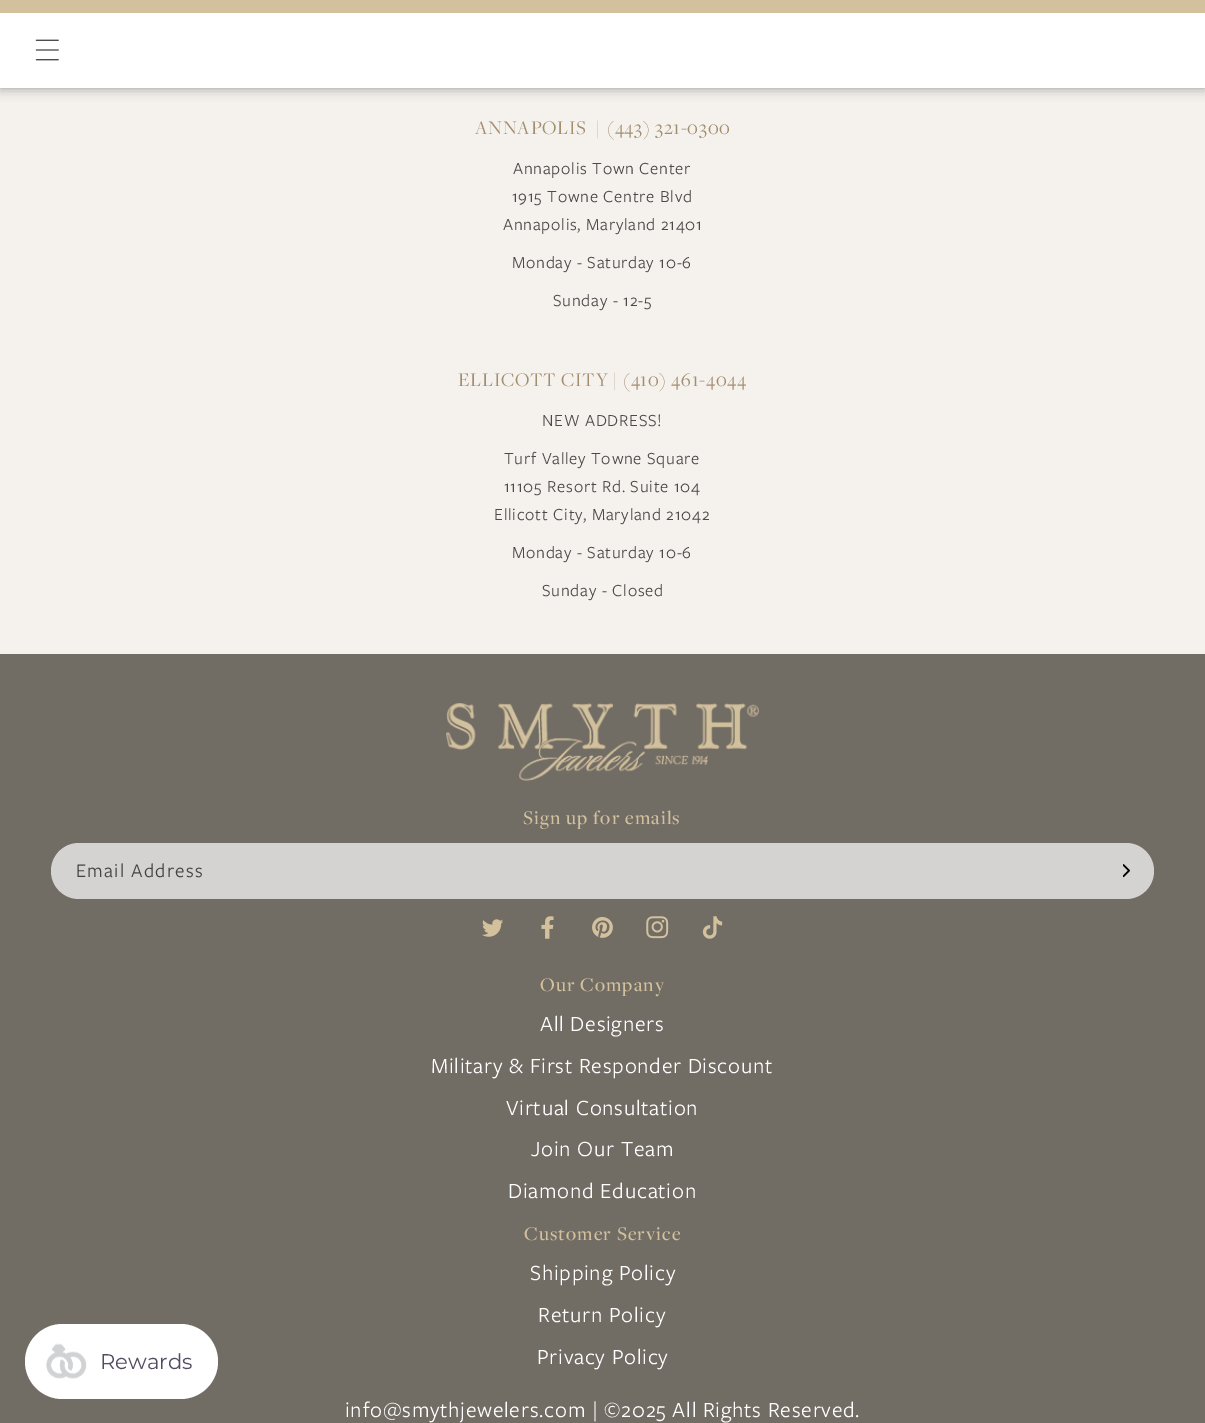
%!PS-Adobe-3.0
%%BoundingBox: 0 0 1205 1423
%%LanguageLevel: 3
%%Pages: 1
%%EndComments
%%BeginProlog
/setink { dup -16 bitshift 255 div exch dup -8 bitshift 255 and 255 div exch 255 and 255 div setrgbcolor } def
/usefont { [ exch dup neg 0 0 3 -1 roll 0 0 ] selectfont } def
/setalpha { dup .setfillconstantalpha .setstrokeconstantalpha } def
/rrect { 5 dict begin { /r /h /w /y /x } { exch def } forall
  x r add y moveto x w add y 2 copy h add r arct x w add y h add x 1 index r arct
  x y h add x y r arct x y 2 copy exch w add exch r arct closepath end } def
/softshadow { 12 dict begin { /a /b /q /h /w /y /x } { exch def } forall gsave /was 0 def
  9 -2 -9 { dup b mul 4 div /e exch def 1 sub .425 mul 2.718 exch exp 1 add a .99 .min exch div /now exch def
    1 1 now sub 1 was sub div sub setalpha /was now def
    w h .min e 2 mul add 0 gt { x e sub y e sub w e 2 mul add h e 2 mul add
      q e add b .6 mul add w h .min 2 div e add .min 0 .max rrect fill } if } for grestore end } def
/drawimage { 5 dict begin { /h /w /y /x /name } { exch def } forall
  gsave x y translate w h scale
  w h 8 [w 0 0 h 0 0] name (r) file false 3 colorimage grestore end } def
%%EndProlog
%%BeginSetup
<< /PageSize [1205 1423] /PageUsesTransparency true >> setpagedevice
%%EndSetup
%%Page: 1 1
0 .pushpdf14devicefilter
0 1423 translate 1 -1 scale
4 setmiterlimit
16#F5F1ED setink
0 0 1205 1423 rectfill
16#959595 setink
0 0 1205 88 0 6 1 softshadow
16#D3C19E setink
0 0 1205 13 rectfill
16#FFFFFF setink
0 13 1205 75 rectfill
(img1.raw) 35 39 24 22 drawimage
/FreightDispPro-Regular 20 usefont
16#A28E6F setink
475 134 moveto 0.75 0 (ANNAPOLIS  |) ashow
607 134 moveto 0.75 0 (\(443\) 321-0300) ashow
/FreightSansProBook-Regular 17.5 usefont
16#4B4A49 setink
513 174 moveto 0.75 0 (Annapolis Town Center) ashow
512 202 moveto 0.75 0 (1915 Towne Centre Blvd) ashow
503 230 moveto 0.75 0 (Annapolis, Maryland 21401) ashow
512 268 moveto 0.75 0 (Monday - Saturday 10-6) ashow
553 306 moveto 0.75 0 (Sunday - 12-5) ashow
/FreightDispPro-Regular 20 usefont
16#A28E6F setink
458 386 moveto 0.75 0 (ELLICOTT CITY |) ashow
623 386 moveto 0.75 0 (\(410\) 461-4044) ashow
/FreightSansProBook-Regular 17.5 usefont
16#4B4A49 setink
542 426 moveto 0.75 0 (NEW ADDRESS!) ashow
504 464 moveto 0.75 0 (Turf Valley Towne Square) ashow
504 492 moveto 0.75 0 (11105 Resort Rd. Suite 104) ashow
494 520 moveto 0.75 0 (Ellicott City, Maryland 21042) ashow
512 558 moveto 0.75 0 (Monday - Saturday 10-6) ashow
542 596 moveto 0.75 0 (Sunday - Closed) ashow
16#716C64 setink
0 654 1205 769 rectfill
(img2.raw) 446 703 313 78 drawimage
/FreightDispPro-Medium 20 usefont
16#D3C19E setink
523 824 moveto 1.1 0 (Sign up for emails) ashow
16#D4D3D1 setink
51 843 1103 56 28 rrect fill
/FreightSansProBook-Regular 20 usefont
16#434242 setink
76 877 moveto 1.25 0 (Email Address) ashow
(img3.raw) 1123 864 7 14 drawimage
(img4.raw) 482 919 21 18 drawimage
(img5.raw) 541 916 13 23 drawimage
(img6.raw) 592 917 21 21 drawimage
(img7.raw) 646 916 23 23 drawimage
(img8.raw) 702 916 21 23 drawimage
/FreightDispPro-Medium 20 usefont
16#D3C19E setink
540 991 moveto 1.1 0 (Our Company) ashow
/FreightSansProBook-Regular 22.5 usefont
16#FFFFFF setink
540 1031 moveto 0.75 0 (All Designers) ashow
431 1073 moveto 0.75 0 (Military & First Responder Discount) ashow
506 1115 moveto 0.75 0 (Virtual Consultation) ashow
531 1156 moveto 0.75 0 (Join Our Team) ashow
508 1198 moveto 0.75 0 (Diamond Education) ashow
/FreightDispPro-Medium 20 usefont
16#D3C19E setink
524 1240 moveto 1.1 0 (Customer Service) ashow
/FreightSansProBook-Regular 22.5 usefont
16#FFFFFF setink
530 1280 moveto 0.75 0 (Shipping Policy) ashow
538 1322 moveto 0.75 0 (Return Policy) ashow
537 1364 moveto 0.75 0 (Privacy Policy) ashow
345 1417 moveto 0.75 0 (info@smythjewelers.com | ©2025 All Rights Reserved.) ashow
25 1324 193 75 37.5 rrect fill
(img9.raw) 46 1343 41 36 drawimage
/Montserrat-Regular 21.25 usefont
16#524B62 setink
100 1369 moveto (Rewards) show
.poppdf14devicefilter showpage
%%EOF
